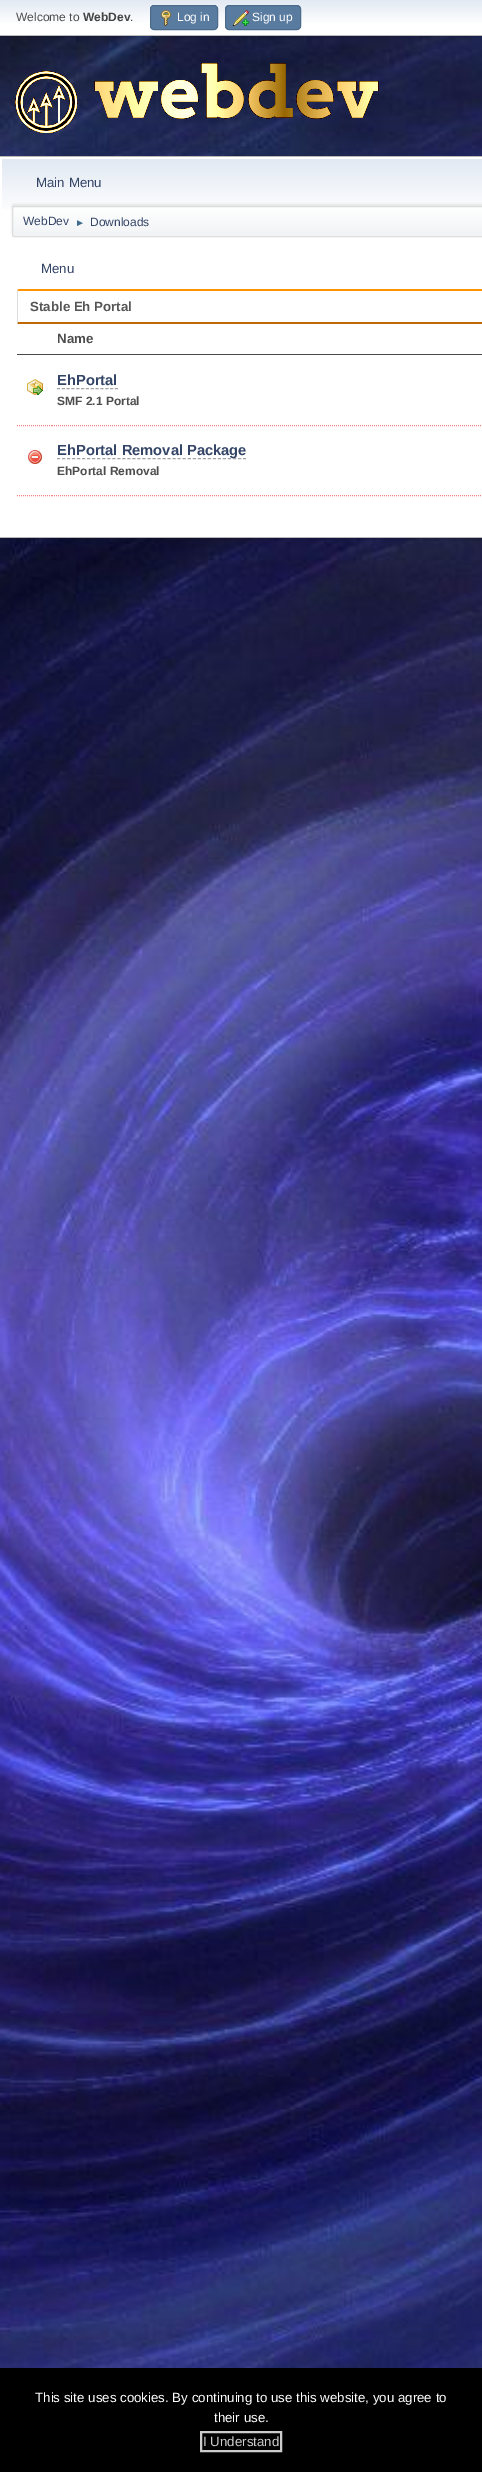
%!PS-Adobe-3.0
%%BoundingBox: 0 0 482 2472
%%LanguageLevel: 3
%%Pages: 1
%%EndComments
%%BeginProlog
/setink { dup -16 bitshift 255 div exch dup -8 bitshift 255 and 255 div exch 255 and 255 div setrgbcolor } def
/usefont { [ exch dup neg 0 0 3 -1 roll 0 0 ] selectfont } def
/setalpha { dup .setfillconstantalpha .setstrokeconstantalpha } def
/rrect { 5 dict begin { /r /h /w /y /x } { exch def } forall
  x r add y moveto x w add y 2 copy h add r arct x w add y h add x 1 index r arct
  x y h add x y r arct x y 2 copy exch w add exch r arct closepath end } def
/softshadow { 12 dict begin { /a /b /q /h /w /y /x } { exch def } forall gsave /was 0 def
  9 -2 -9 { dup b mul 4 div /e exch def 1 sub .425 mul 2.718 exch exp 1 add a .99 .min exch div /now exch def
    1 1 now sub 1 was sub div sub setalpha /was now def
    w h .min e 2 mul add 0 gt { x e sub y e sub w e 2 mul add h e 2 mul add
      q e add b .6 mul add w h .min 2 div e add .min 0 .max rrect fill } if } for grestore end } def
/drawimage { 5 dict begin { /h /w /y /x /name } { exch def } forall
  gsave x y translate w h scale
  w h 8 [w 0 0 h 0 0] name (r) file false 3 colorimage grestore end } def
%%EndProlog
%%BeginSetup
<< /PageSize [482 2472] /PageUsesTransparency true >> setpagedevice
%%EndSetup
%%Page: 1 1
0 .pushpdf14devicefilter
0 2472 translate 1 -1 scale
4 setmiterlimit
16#FFFFFF setink
0 0 482 2472 rectfill
(img1.raw) 0 36 482 2332 drawimage
16#000000 setink
0 1 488 36 0 2 0.16 softshadow
gsave 0 0 moveto 482 0 lineto 482 35 lineto 0 35 lineto closepath clip newpath
<< /ShadingType 2 /ColorSpace /DeviceRGB /Coords [375 0 375 35] /Extend [true true] /Function << /FunctionType 3 /Domain [0 1] /Functions [<< /FunctionType 2 /Domain [0 1] /C0 [0.886 0.914 0.953] /C1 [1 1 1] /N 1 >> << /FunctionType 2 /Domain [0 1] /C0 [1 1 1] /C1 [1 1 1] /N 1 >>] /Bounds [0.7] /Encode [0 1 0 1] >> >> shfill grestore
16#BBBBBB setink
0 35 482 1 rectfill
/LiberationSans-Regular 12 usefont
16#4D4D4D setink
16 21 moveto (Welcome to) show
/LiberationSans-Bold 12 usefont
16#444444 setink
83 21 moveto (WebDev) show
/LiberationSans-Regular 12 usefont
16#4D4D4D setink
130 21 moveto (.) show
16#597B9F setink
150.5 5.5 67 24 3.5 rrect gsave fill grestore
16#4A6B8C setink
stroke
(img2.raw) 161 10 10 16 drawimage
16#FFFFFF setink
177 21 moveto (Log in) show
16#597B9F setink
225.5 5.5 75 24 3.5 rrect gsave fill grestore
16#4A6B8C setink
stroke
(img3.raw) 233 10 16 16 drawimage
16#FFFFFF setink
252 21 moveto (Sign up) show
(img4.raw) 15 63 364 70 drawimage
16#000000 setink
0 158 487 382 0 1.5 0.14 softshadow
[
    [0 157 482 380 16#FFFFFF]
    [0 156 482 1 16#B8B8B8]
    [0 537 482 1 16#B8B8B8]
] { aload pop setink rectfill } forall
gsave 2 159 moveto 482 159 lineto 482 210 lineto 2 210 lineto closepath clip newpath
<< /ShadingType 2 /ColorSpace /DeviceRGB /Coords [375 159 375 239] /Extend [true true] /Function << /FunctionType 3 /Domain [0 1] /Functions [<< /FunctionType 2 /Domain [0 1] /C0 [0.886 0.914 0.953] /C1 [1 1 1] /N 1 >> << /FunctionType 2 /Domain [0 1] /C0 [1 1 1] /C1 [1 1 1] /N 1 >>] /Bounds [0.7] /Encode [0 1 0 1] >> >> shfill grestore
/LiberationSans-Regular 13.3 usefont
16#334466 setink
36 187 moveto (Main Menu) show
16#000000 setink
12 204 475 31 2 1 0.08 softshadow
gsave 12 207 moveto 482 207 lineto 482 236 lineto 12 236 lineto closepath clip newpath
<< /ShadingType 2 /ColorSpace /DeviceRGB /Coords [375 207 375 236] /Extend [true true] /Function << /FunctionType 3 /Domain [0 1] /Functions [<< /FunctionType 2 /Domain [0 1] /C0 [1 1 1] /C1 [0.945 0.953 0.961] /N 1 >> << /FunctionType 2 /Domain [0 1] /C0 [0.945 0.953 0.961] /C1 [0.945 0.953 0.961] /N 1 >>] /Bounds [0.95] /Encode [0 1 0 1] >> >> shfill grestore
16#DDDDDD setink
12.5 206.5 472 30 1.5 rrect stroke
/LiberationSans-Regular 12 usefont
16#334466 setink
23 225 moveto (WebDev) show
/LiberationSans-Regular 10 usefont
16#3F6B8C setink
75 226 moveto (►) show
/LiberationSans-Regular 12 usefont
16#334466 setink
90 226 moveto (Downloads) show
/LiberationSans-Regular 13.3 usefont
41 273 moveto (Menu) show
16#FF9400 setink
19 289 moveto 17 290 lineto 18 291 lineto 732 291 lineto 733 290 lineto 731 289 lineto closepath fill
16#BF6900 setink
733 324 moveto 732 322 lineto 18 322 lineto 17 324 lineto closepath fill
16#DDDDDD setink
17 324 moveto 18 322 lineto 18 291 lineto 17.5 290 lineto 17 291 lineto closepath fill
/LiberationSans-Bold 13.3 usefont
16#555555 setink
30 311 moveto (Stable Eh Portal) show
16#4D4D4D setink
57 343 moveto (Name) show
16#494949 setink
17 354 465 1 rectfill
16#F98080 setink
[1 1] 0 setdash
17 425.5 moveto 52 425.5 lineto stroke
(img5.raw) 27 379 16 16 drawimage
52 425.5 moveto 474 425.5 lineto stroke
/LiberationSans-Bold 14.7 usefont
16#334466 setink
57 385 moveto (EhPortal) show
16#A2A2A2 setink
[3 1.83] 0 setdash
57 388.5 moveto 118 388.5 lineto stroke
/LiberationSans-Bold 12 usefont
16#4D4D4D setink
57 405 moveto (SMF 2.1 Portal) show
16#F98080 setink
[1 1] 0 setdash
474 425.5 moveto 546 425.5 lineto stroke
17 495.5 moveto 52 495.5 lineto stroke
(img6.raw) 28 450 14 14 drawimage
52 495.5 moveto 474 495.5 lineto stroke
16#A2A2A2 setink
[3 2.03] 0 setdash
57 458.5 moveto 246 458.5 lineto stroke
/LiberationSans-Bold 14.7 usefont
16#334466 setink
57 455 moveto (EhPortal Removal Package) show
/LiberationSans-Bold 12 usefont
16#4D4D4D setink
57 475 moveto (EhPortal Removal) show
16#F98080 setink
[1 1] 0 setdash
474 495.5 moveto 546 495.5 lineto stroke
16#000000 setink
0 2368 482 104 rectfill
/LiberationSans-Regular 13.3 usefont
16#FFFFFF setink
35 2402 moveto (This site uses cookies. By continuing to use this website, you agree to) show
214 2422 moveto (their use.) show
16#CCCCCC setink
2 setlinewidth
[] 0 setdash
201 2432 80 19 rectstroke
203 2446 moveto (I Understand) show
.poppdf14devicefilter showpage
%%EOF
